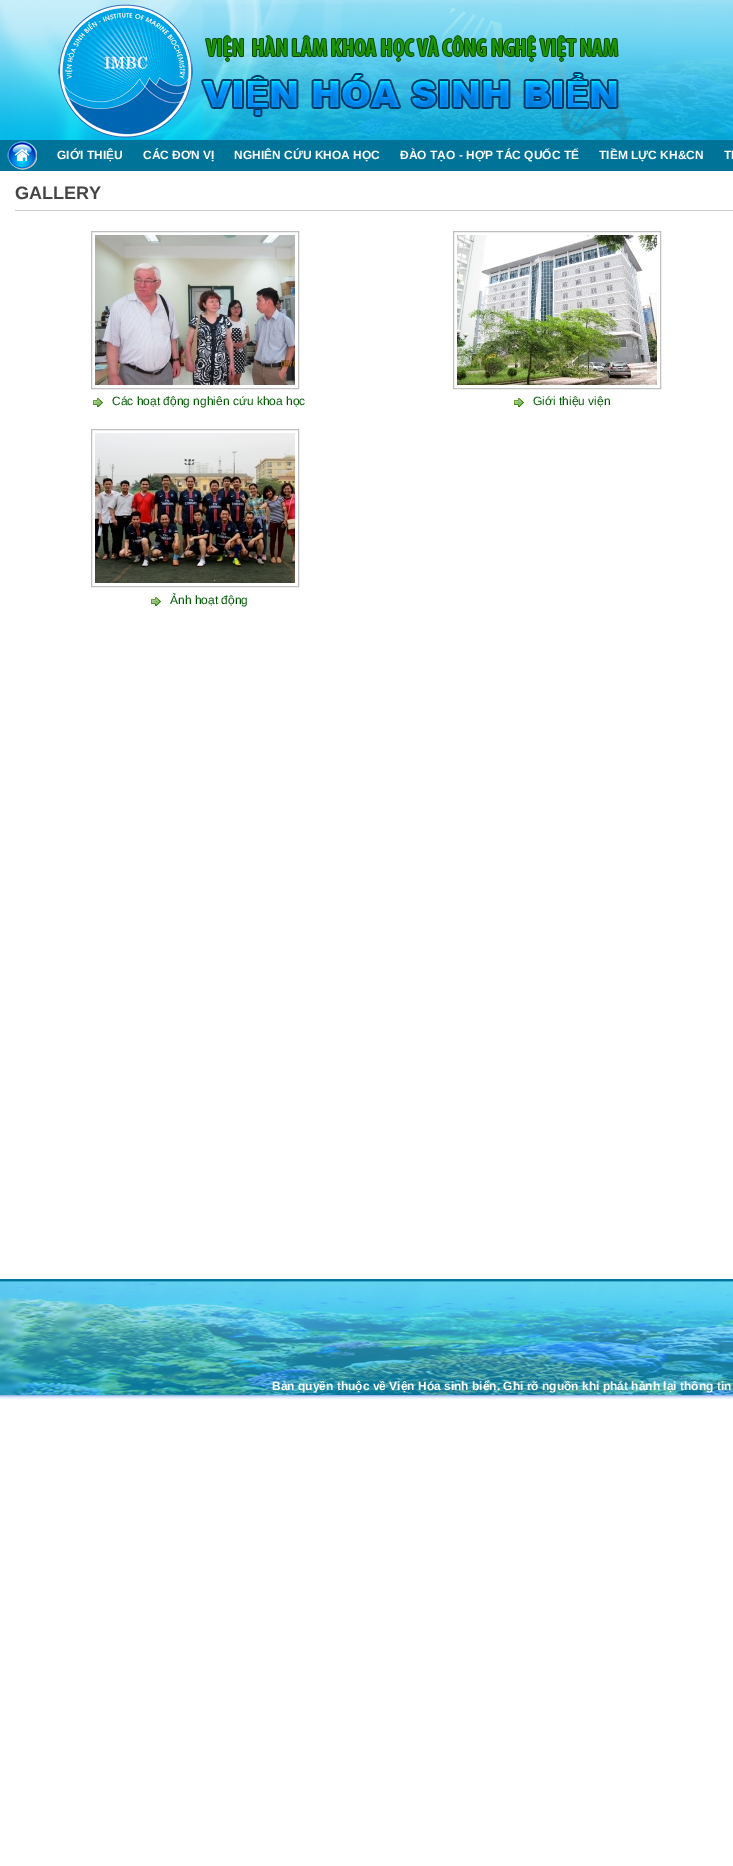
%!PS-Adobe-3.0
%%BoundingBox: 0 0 733 1866
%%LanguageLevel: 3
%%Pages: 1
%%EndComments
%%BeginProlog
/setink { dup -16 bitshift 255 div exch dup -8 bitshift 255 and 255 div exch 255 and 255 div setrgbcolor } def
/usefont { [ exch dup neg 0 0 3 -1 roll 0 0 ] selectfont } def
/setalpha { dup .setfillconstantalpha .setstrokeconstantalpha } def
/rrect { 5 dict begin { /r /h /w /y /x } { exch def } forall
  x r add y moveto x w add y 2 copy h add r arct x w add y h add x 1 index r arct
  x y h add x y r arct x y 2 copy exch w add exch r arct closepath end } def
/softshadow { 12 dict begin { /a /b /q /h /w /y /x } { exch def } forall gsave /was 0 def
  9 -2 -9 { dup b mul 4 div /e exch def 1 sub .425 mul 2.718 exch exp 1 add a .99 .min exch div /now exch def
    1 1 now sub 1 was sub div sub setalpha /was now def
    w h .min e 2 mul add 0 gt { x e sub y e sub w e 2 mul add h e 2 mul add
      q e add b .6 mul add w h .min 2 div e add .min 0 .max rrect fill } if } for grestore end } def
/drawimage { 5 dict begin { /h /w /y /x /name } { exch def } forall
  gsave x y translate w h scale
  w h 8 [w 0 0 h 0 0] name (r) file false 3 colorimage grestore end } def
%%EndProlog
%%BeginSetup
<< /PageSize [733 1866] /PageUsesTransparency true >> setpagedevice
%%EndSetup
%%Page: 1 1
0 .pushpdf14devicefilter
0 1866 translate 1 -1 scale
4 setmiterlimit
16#FFFFFF setink
0 0 733 1866 rectfill
gsave
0 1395 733 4 rectclip
16#044ACA setink
0 0 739 1395 0 2 1 softshadow
grestore
(img1.raw) 0 0 733 140 drawimage
16#007399 setink
0 140 733 31 rectfill
(img2.raw) 7 141 30 29 drawimage
/LiberationSans-Bold 12 usefont
16#FFFFFF setink
[
    [(GIỚI THIỆU) 57 159]
    [(CÁC ĐƠN VỊ) 143 159]
    [(NGHIÊN CỨU KHOA HỌC) 234 159]
    [(ĐÀO TẠO - HỢP TÁC QUỐC TẾ) 400 159]
    [(TIỀM LỰC KH&CN) 599 159]
    [(TI) 724 159]
] { aload pop moveto show } forall
16#CCCCCC setink
15 210 718 1 rectfill
/LiberationSans-Bold 18 usefont
16#444444 setink
15 199 moveto (GALLERY) show
16#C0C0C0 setink
91.5 231.5 207 157 rectstroke
(img3.raw) 95 235 200 150 drawimage
(img4.raw) 93 398 10 10 drawimage
/LiberationSans-Regular 12 usefont
16#015C01 setink
112 405 moveto (Các hoạt động nghiên cứu khoa học) show
16#C0C0C0 setink
453.5 231.5 207 157 rectstroke
(img5.raw) 457 235 200 150 drawimage
(img4.raw) 514 398 10 10 drawimage
16#015C01 setink
533 405 moveto (Giới thiệu viện) show
16#C0C0C0 setink
91.5 429.5 207 157 rectstroke
(img6.raw) 95 433 200 150 drawimage
(img4.raw) 151 597 10 10 drawimage
16#015C01 setink
170 604 moveto (Ảnh hoạt động) show
(img7.raw) 0 1279 733 116 drawimage
/LiberationSans-Bold 12 usefont
16#FFFFFF setink
272 1390 moveto (Bản quyền thuộc về Viện Hóa sinh biển. Ghi rõ nguồn khi phát hành lại thông tin) show
.poppdf14devicefilter showpage
%%EOF
